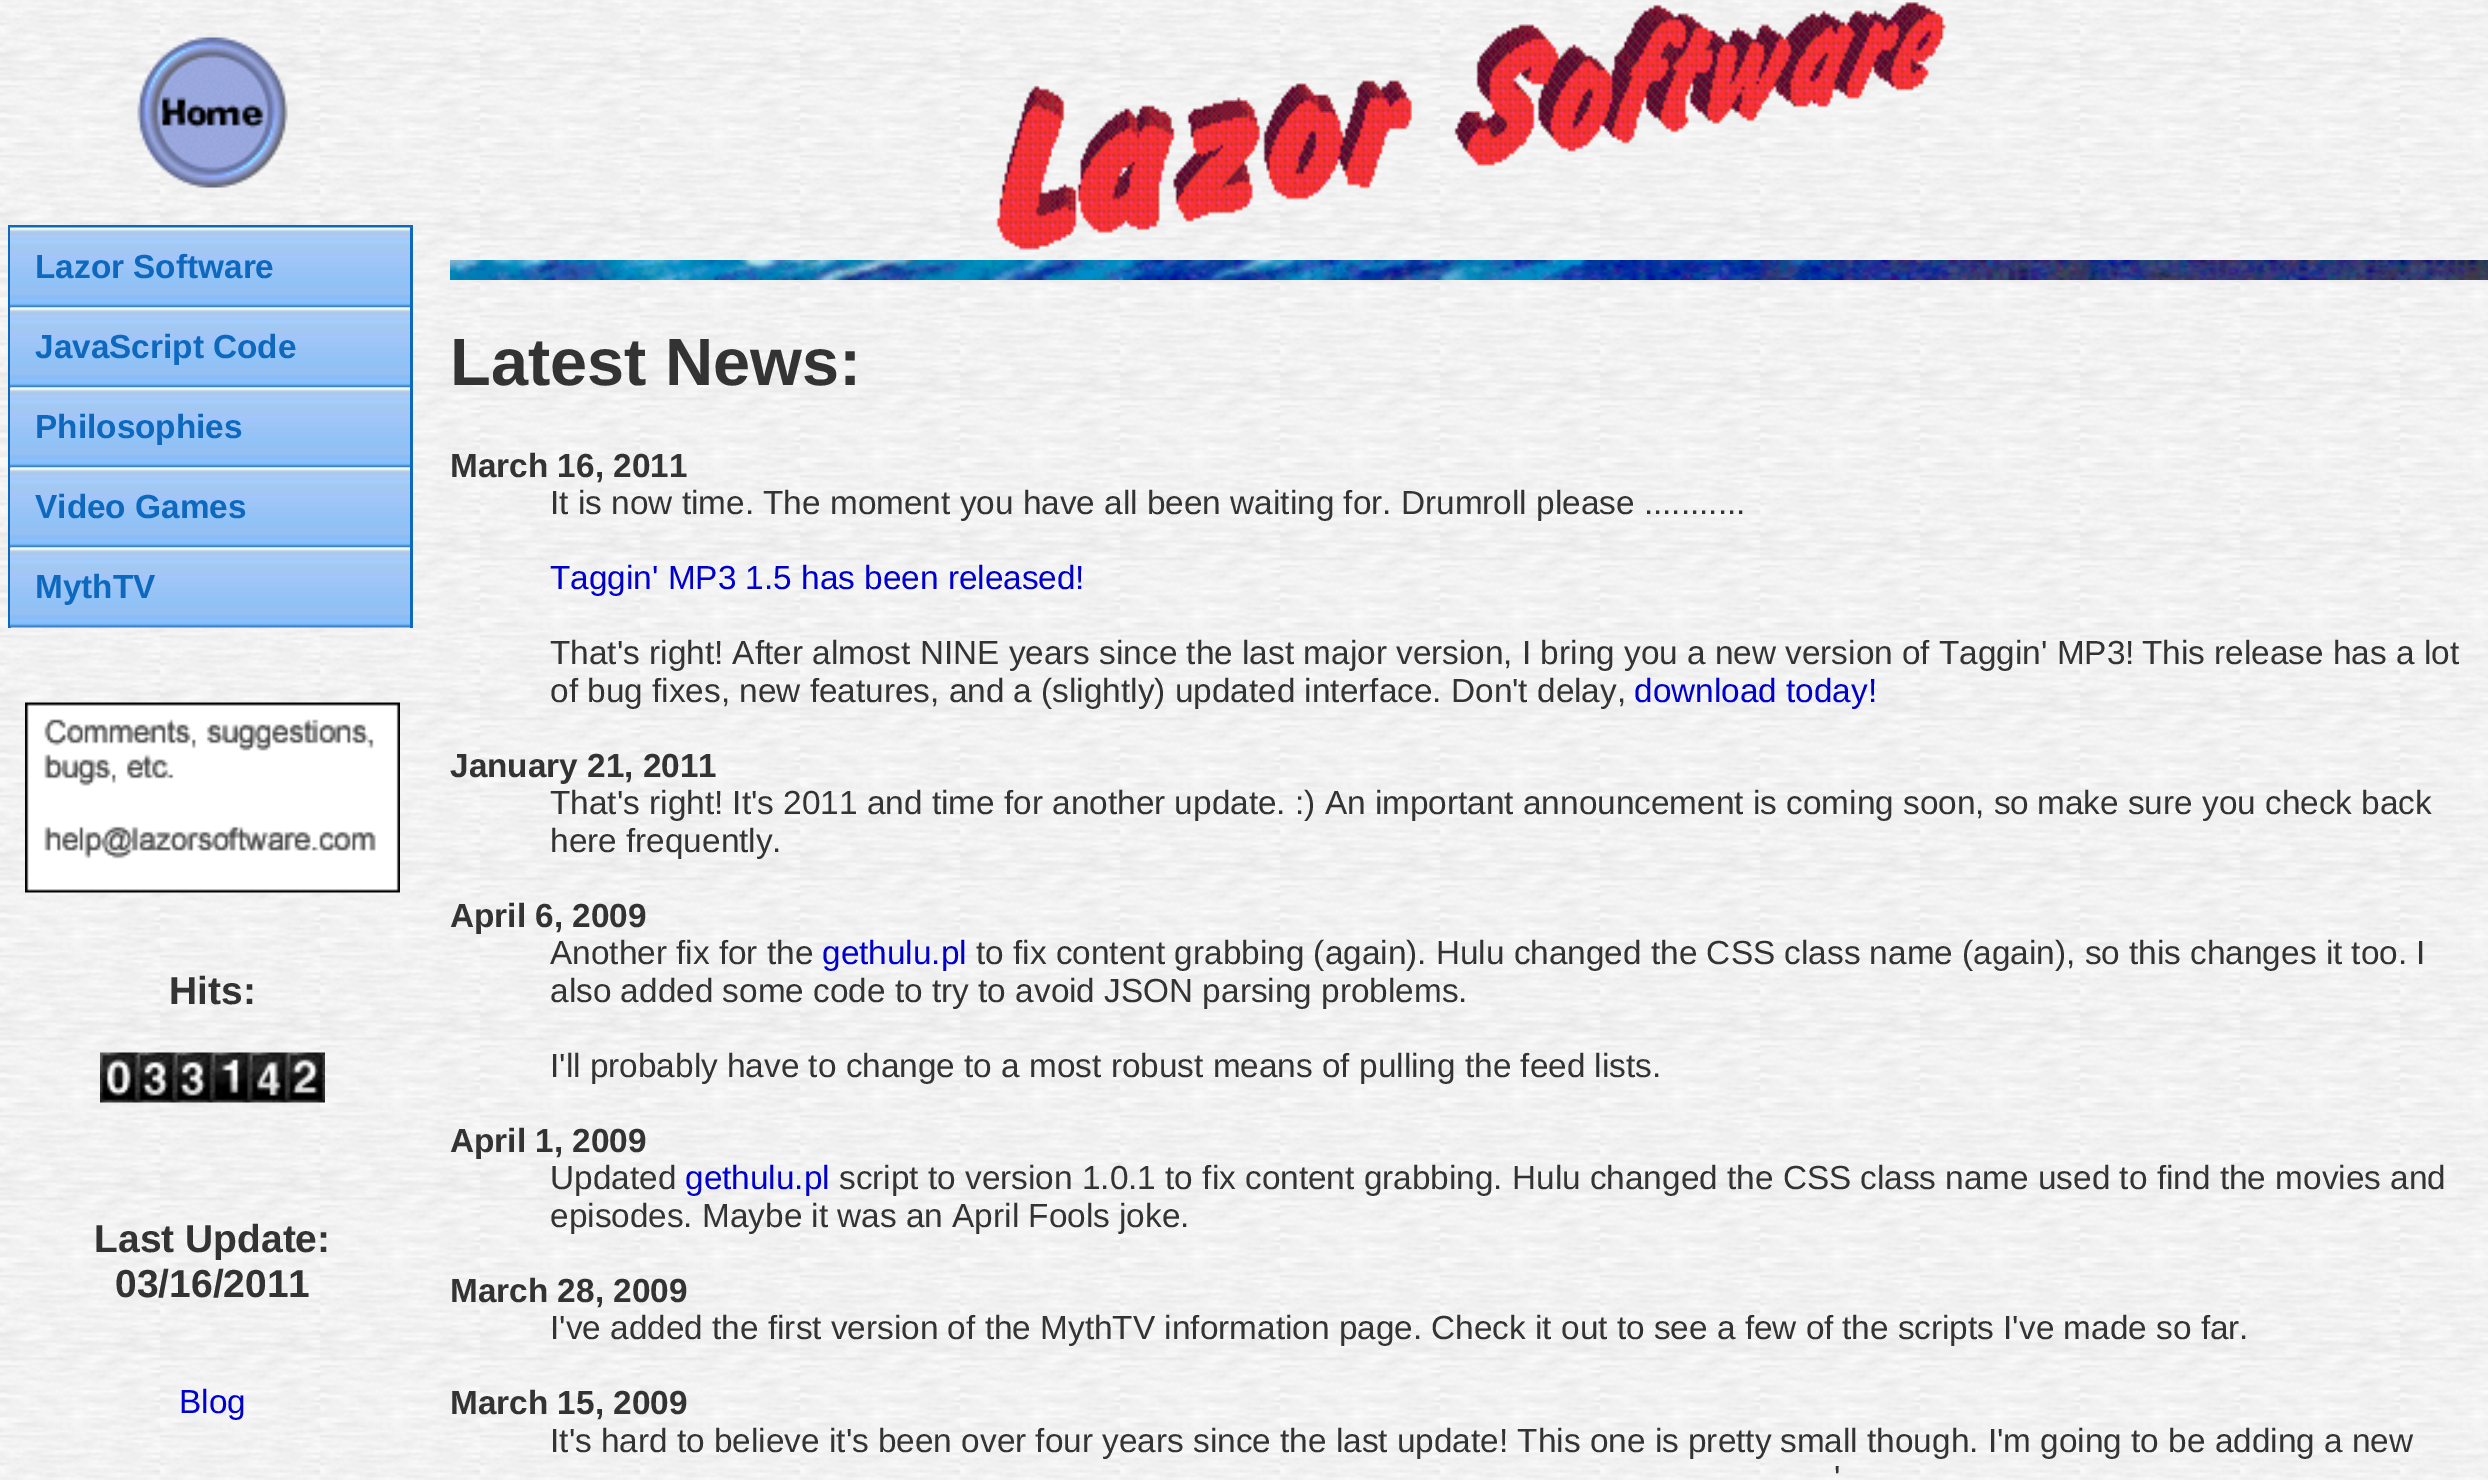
%!PS-Adobe-3.0
%%BoundingBox: 0 0 2488 1480
%%LanguageLevel: 3
%%Pages: 1
%%EndComments
%%BeginProlog
/setink { dup -16 bitshift 255 div exch dup -8 bitshift 255 and 255 div exch 255 and 255 div setrgbcolor } def
/usefont { [ exch dup neg 0 0 3 -1 roll 0 0 ] selectfont } def
/drawimage { 5 dict begin { /h /w /y /x /name } { exch def } forall
  gsave x y translate w h scale
  w h 8 [w 0 0 h 0 0] name (r) file false 3 colorimage grestore end } def
%%EndProlog
%%BeginSetup
<< /PageSize [2488 1480] >> setpagedevice
%%EndSetup
%%Page: 1 1
0 1480 translate 1 -1 scale
4 setmiterlimit
16#FFFFFF setink
0 0 2488 1480 rectfill
(img1.raw) 0 0 2488 1480 drawimage
(img2.raw) 137 37 151 151 drawimage
[
    [8 225 405 3 16#0E69BE]
    [410 225 3 403 16#0E69BE]
    [8 225 3 403 16#0E69BE]
] { aload pop setink rectfill } forall
(img3.raw) 10 227 400 81 drawimage
/LiberationSans-Bold 33.35 usefont
35 278 moveto (Lazor Software) show
(img4.raw) 10 307 400 81 drawimage
35 358 moveto (JavaScript Code) show
(img5.raw) 10 387 400 81 drawimage
35 438 moveto (Philosophies) show
(img4.raw) 10 467 400 81 drawimage
35 518 moveto (Video Games) show
(img5.raw) 10 547 400 81 drawimage
35 598 moveto (MythTV) show
(img6.raw) 25 702 375 191 drawimage
/LiberationSans-Bold 39 usefont
16#333333 setink
169 1004 moveto (Hits:) show
(img7.raw) 100 1052 225 51 drawimage
94 1252 moveto (Last Update:) show
115 1297 moveto (03/16/2011) show
/LiberationSans-Regular 33.35 usefont
16#0000CC setink
179 1413 moveto (Blog) show
(img8.raw) 996 2 950 248 drawimage
(img9.raw) 450 260 2038 20 drawimage
/LiberationSans-Bold 66.75 usefont
16#333333 setink
450 385 moveto (Latest News:) show
/LiberationSans-Bold 33.35 usefont
450 477 moveto (March 16, 2011) show
/LiberationSans-Regular 33.35 usefont
550 514 moveto (It is now time. The moment you have all been waiting for. Drumroll please ...........) show
16#0000CC setink
550 589 moveto (Taggin' MP3 1.5 has been released!) show
16#333333 setink
[
    [(That's right! After almost NINE years since the last major version, I bring you a new version of Taggin' MP3!) 550 664]
    [(This release has a lot) 2142 664]
    [(of bug fixes, new features, and a \(slightly\) updated interface. Don't delay,) 550 702]
] { aload pop moveto show } forall
16#0000CC setink
1634 702 moveto (download today!) show
/LiberationSans-Bold 33.35 usefont
16#333333 setink
450 777 moveto (January 21, 2011) show
/LiberationSans-Regular 33.35 usefont
[
    [(That's right! It's 2011 and time for another update. :\) An important announcement is coming soon, so) 550 814]
    [(make sure you check back) 2037 814]
    [(here frequently.) 550 852]
] { aload pop moveto show } forall
/LiberationSans-Bold 33.35 usefont
450 927 moveto (April 6, 2009) show
/LiberationSans-Regular 33.35 usefont
550 964 moveto (Another fix for the) show
16#0000CC setink
822 964 moveto (gethulu.pl) show
16#333333 setink
[
    [(to fix content grabbing \(again\). Hulu changed the CSS class name \(again\), so this changes it too. I) 976 964]
    [(also added some code to try to avoid JSON parsing problems.) 550 1002]
    [(I'll probably have to change to a most robust means of pulling the feed lists.) 550 1077]
] { aload pop moveto show } forall
/LiberationSans-Bold 33.35 usefont
450 1152 moveto (April 1, 2009) show
/LiberationSans-Regular 33.35 usefont
550 1189 moveto (Updated) show
16#0000CC setink
685 1189 moveto (gethulu.pl) show
16#333333 setink
[
    [(script to version 1.0.1 to fix content grabbing. Hulu changed the CSS) 839 1189]
    [(class name used to find the movies and) 1860 1189]
    [(episodes. Maybe it was an April Fools joke.) 550 1227]
] { aload pop moveto show } forall
/LiberationSans-Bold 33.35 usefont
450 1302 moveto (March 28, 2009) show
/LiberationSans-Regular 33.35 usefont
550 1339 moveto (I've added the first version of the MythTV information page. Check it out to see a few of) show
1842 1339 moveto (the scripts I've made so far.) show
/LiberationSans-Bold 33.35 usefont
450 1414 moveto (March 15, 2009) show
/LiberationSans-Regular 33.35 usefont
[
    [(It's hard to believe it's been over four years since the last update! This one is pretty) 550 1452]
    [(small though. I'm going to be adding a new) 1780 1452]
    [(') 1834 1489]
] { aload pop moveto show } forall
showpage
%%EOF
